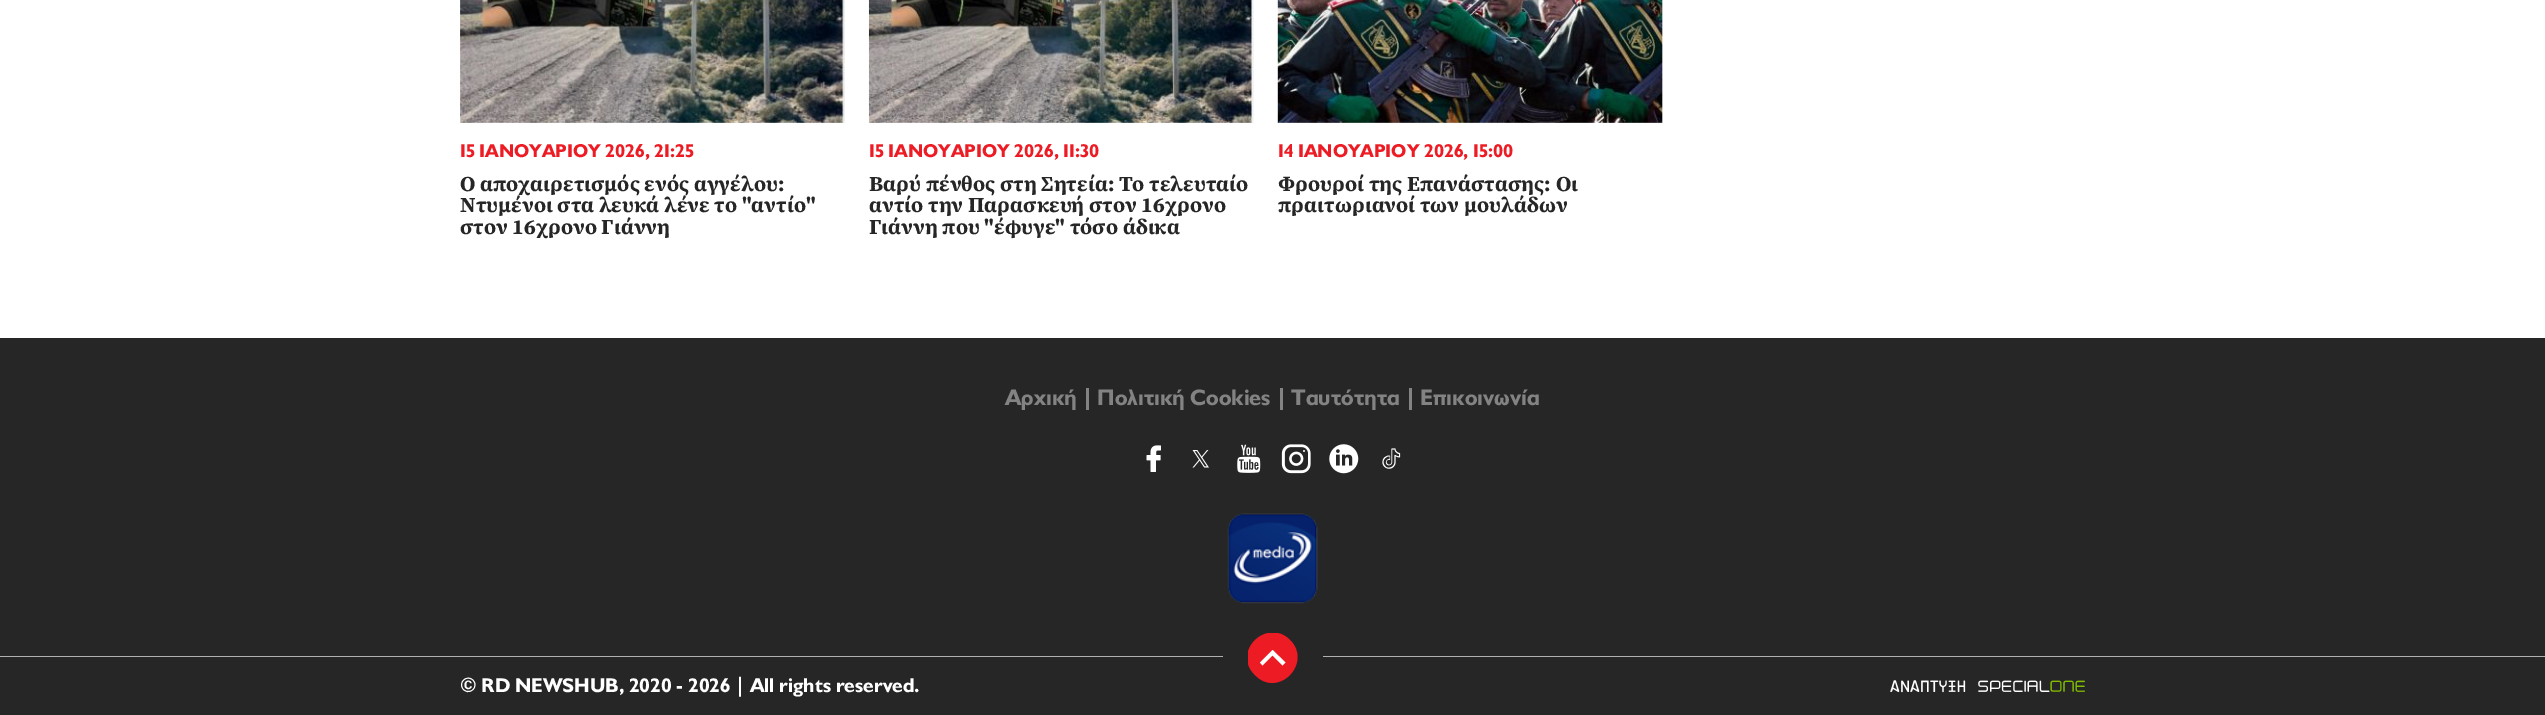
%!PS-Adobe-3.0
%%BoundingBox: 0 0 2545 715
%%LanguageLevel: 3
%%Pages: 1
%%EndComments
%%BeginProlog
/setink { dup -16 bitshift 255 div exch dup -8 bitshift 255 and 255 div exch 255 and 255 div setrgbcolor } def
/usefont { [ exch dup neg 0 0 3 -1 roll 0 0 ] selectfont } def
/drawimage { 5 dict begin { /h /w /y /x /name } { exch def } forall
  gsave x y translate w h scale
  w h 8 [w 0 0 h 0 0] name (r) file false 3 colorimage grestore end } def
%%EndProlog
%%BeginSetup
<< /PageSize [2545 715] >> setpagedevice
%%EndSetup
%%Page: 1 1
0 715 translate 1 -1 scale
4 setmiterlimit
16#FFFFFF setink
0 0 2545 715 rectfill
(img1.raw) 460 0 385 123 drawimage
/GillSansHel-Bold 18.75 usefont
16#ED1C24 setink
460 157 moveto (15 ΙΑΝΟΥΑΡΙΟΥ 2026, 21:25) show
/SourceSerif4-Bold 21.25 usefont
16#262626 setink
[
    [(Ο αποχαιρετισμός ενός αγγέλου:) 460 191]
    [(Ντυμένοι στα λευκά λένε το "αντίο") 460 212]
    [(στον 16χρονο Γιάννη) 460 234]
] { aload pop moveto show } forall
(img2.raw) 868 0 386 123 drawimage
/GillSansHel-Bold 18.75 usefont
16#ED1C24 setink
869 157 moveto (15 ΙΑΝΟΥΑΡΙΟΥ 2026, 11:30) show
/SourceSerif4-Bold 21.25 usefont
16#262626 setink
[
    [(Βαρύ πένθος στη Σητεία: Το τελευταίο) 869 191]
    [(αντίο την Παρασκευή στον 16χρονο) 869 212]
    [(Γιάννη που "έφυγε" τόσο άδικα) 869 234]
] { aload pop moveto show } forall
(img3.raw) 1277 0 386 123 drawimage
/GillSansHel-Bold 18.75 usefont
16#ED1C24 setink
1278 157 moveto (14 ΙΑΝΟΥΑΡΙΟΥ 2026, 15:00) show
/SourceSerif4-Bold 21.25 usefont
16#262626 setink
1278 191 moveto (Φρουροί της Επανάστασης: Οι) show
1278 212 moveto (πραιτωριανοί των μουλάδων) show
0 338 2545 377 rectfill
/GillSansHel-Bold 22.5 usefont
16#838383 setink
1005 405 moveto (Αρχική) show
1086 388 3 22 rectfill
1097 405 moveto (Πολιτική Cookies) show
1280 388 3 22 rectfill
1291 405 moveto (Ταυτότητα) show
1409 388 3 22 rectfill
1420 405 moveto (Επικοινωνία) show
(img4.raw) 1146 445 15 27 drawimage
(img5.raw) 1192 450 17 18 drawimage
(img6.raw) 1237 444 24 29 drawimage
(img7.raw) 1281 444 30 30 drawimage
(img8.raw) 1329 444 30 30 drawimage
(img9.raw) 1382 448 19 21 drawimage
(img10.raw) 1227 513 91 91 drawimage
16#B0B0B0 setink
0 656 2545 1 rectfill
16#262626 setink
1223 656 100 1 rectfill
gsave
1248 633 50 50 rectclip
16#ED1C24 setink
1290 640 moveto 1313 663 1278 699 1255 675 curveto 1231 652 1267 617 1290 640 curveto fill
grestore
16#FFFFFF setink
1285.5 662.5 moveto 1272.5 650 lineto 1260 662.5 lineto 1262.5 665.5 lineto 1272.5 655.5 lineto 1282.5 665.5 lineto closepath eofill
/GillSansHel-Bold 20 usefont
460 692 moveto (© RD NEWSHUB, 2020 - 2026 | All rights reserved.) show
(img11.raw) 1890 680 195 13 drawimage
showpage
%%EOF
